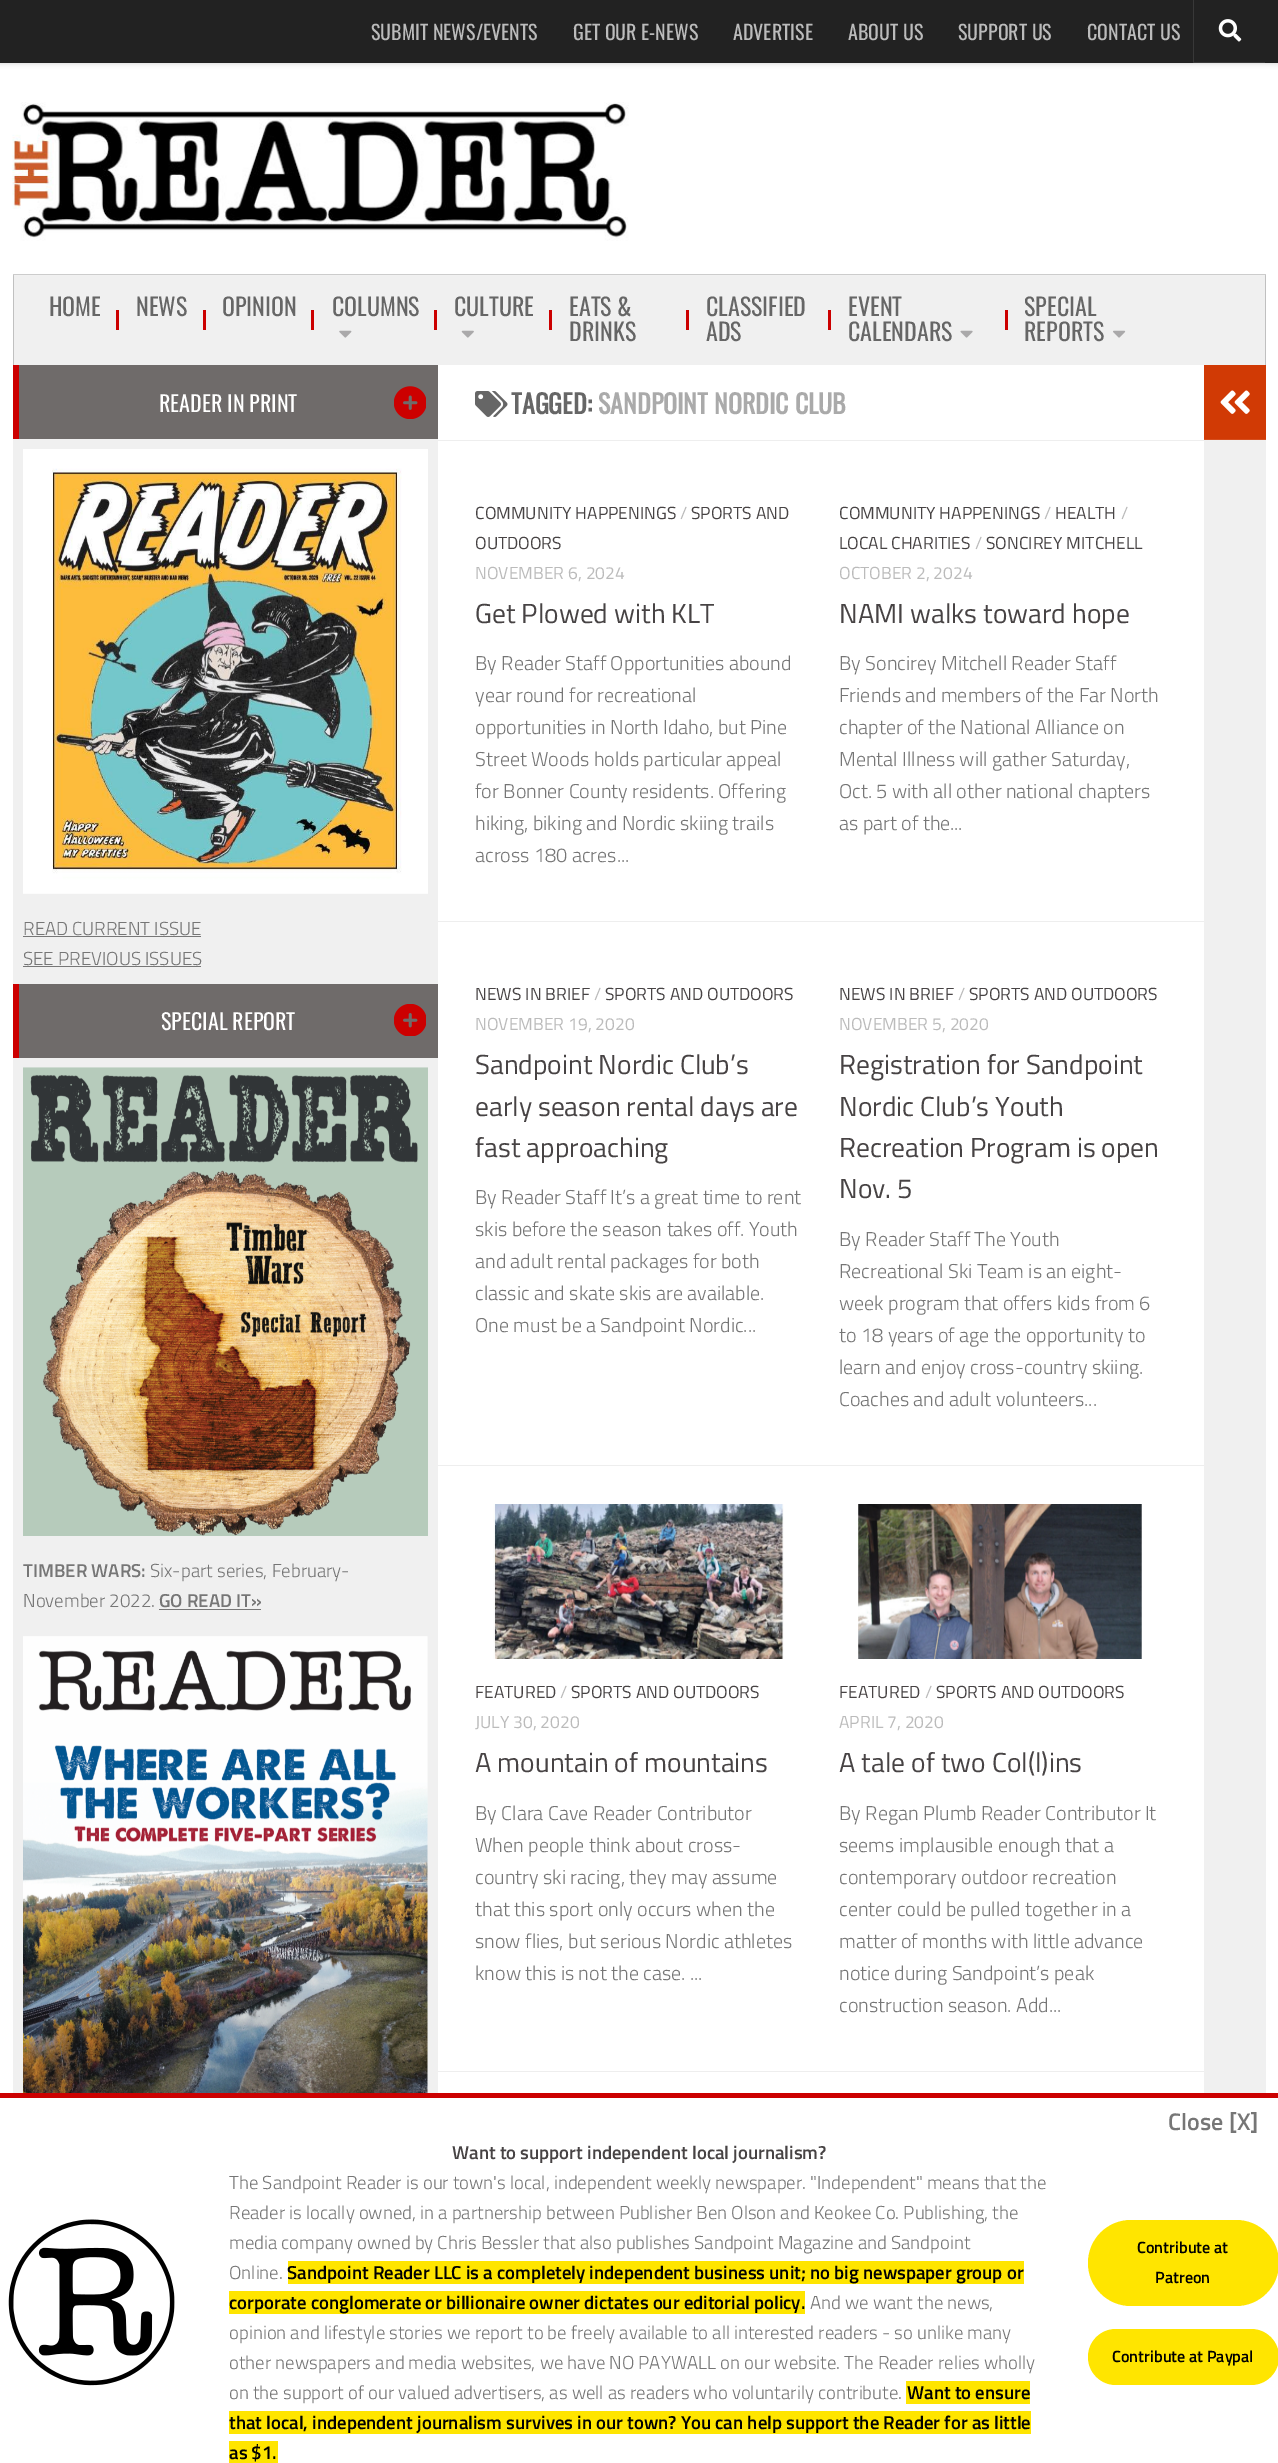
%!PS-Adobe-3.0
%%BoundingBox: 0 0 1278 2463
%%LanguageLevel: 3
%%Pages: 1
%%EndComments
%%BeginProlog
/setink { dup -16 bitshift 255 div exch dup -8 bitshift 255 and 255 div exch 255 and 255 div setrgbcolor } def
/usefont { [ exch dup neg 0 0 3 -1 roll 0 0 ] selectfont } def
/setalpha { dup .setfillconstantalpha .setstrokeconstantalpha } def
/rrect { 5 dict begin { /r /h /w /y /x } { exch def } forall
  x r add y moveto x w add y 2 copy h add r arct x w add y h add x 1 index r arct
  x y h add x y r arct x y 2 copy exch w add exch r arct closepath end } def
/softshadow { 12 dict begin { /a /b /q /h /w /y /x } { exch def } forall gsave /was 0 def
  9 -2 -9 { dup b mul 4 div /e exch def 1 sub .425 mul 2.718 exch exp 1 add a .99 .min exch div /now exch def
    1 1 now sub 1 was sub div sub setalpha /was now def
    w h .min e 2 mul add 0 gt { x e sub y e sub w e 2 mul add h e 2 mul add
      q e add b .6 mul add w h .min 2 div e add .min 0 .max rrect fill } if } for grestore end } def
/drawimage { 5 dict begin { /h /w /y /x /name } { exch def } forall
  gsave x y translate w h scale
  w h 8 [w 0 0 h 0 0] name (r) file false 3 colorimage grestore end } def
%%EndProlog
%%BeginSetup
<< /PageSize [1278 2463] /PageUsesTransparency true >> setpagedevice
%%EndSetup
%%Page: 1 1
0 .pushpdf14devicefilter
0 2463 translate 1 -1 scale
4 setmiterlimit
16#FFFFFF setink
0 0 1278 2463 rectfill
16#000000 setink
0 0 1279 63 0 3 0.2 softshadow
16#222222 setink
0 0 1278 63 rectfill
/Oswald-Regular 20 usefont
16#BBBBBB setink
[
    [(SUBMIT NEWS/EVENTS) 371 40]
    [(GET OUR E-NEWS) 573 40]
    [(ADVERTISE) 733 40]
    [(ABOUT US) 848 40]
    [(SUPPORT US) 958 40]
    [(CONTACT US) 1087 40]
] { aload pop moveto show } forall
16#383838 setink
1193 0 moveto 1193 63 lineto 1265 63 lineto 1265 62 lineto 1194 62 lineto 1194 0 lineto closepath fill
(img1.raw) 1218 19 24 23 drawimage
(img2.raw) 12 102 617 139 drawimage
[
    [13 274 1253 1 16#CCCCCC]
    [14 276 1251 89 16#F0F0F0]
    [13 275 1253 1 16#F1F1F1]
    [1265 275 1 90 16#C0C0C0]
    [1265 275 1 1 16#C3C3C3]
    [13 275 1 90 16#C0C0C0]
    [13 275 1 1 16#C3C3C3]
] { aload pop setink rectfill } forall
/Oswald-Regular 24 usefont
16#666666 setink
49 316 moveto (HOME) show
16#CC0000 setink
116 310 3 20 rectfill
16#666666 setink
136 316 moveto (NEWS) show
16#CC0000 setink
203 310 3 20 rectfill
16#666666 setink
222 316 moveto (OPINION) show
16#CC0000 setink
311 310 3 20 rectfill
16#666666 setink
332 316 moveto (COLUMNS) show
(img3.raw) 339 330 13 8 drawimage
16#CC0000 setink
434 310 3 20 rectfill
16#666666 setink
454 316 moveto (CULTURE) show
(img4.raw) 461 330 13 8 drawimage
16#CC0000 setink
549 310 3 20 rectfill
16#666666 setink
569 316 moveto (EATS &) show
569 341 moveto (DRINKS) show
16#CC0000 setink
686 310 3 20 rectfill
16#666666 setink
706 316 moveto (CLASSIFIED) show
706 341 moveto (ADS) show
16#CC0000 setink
828 310 3 20 rectfill
16#666666 setink
848 316 moveto (EVENT) show
848 341 moveto (CALENDARS) show
(img5.raw) 960 330 13 8 drawimage
16#CC0000 setink
1005 310 3 20 rectfill
16#666666 setink
1024 316 moveto (SPECIAL) show
1024 341 moveto (REPORTS) show
(img6.raw) 1113 330 13 8 drawimage
16#6F6B6A setink
19 365 419 74 rectfill
16#CC0000 setink
13 365 6 74 rectfill
/Oswald-Regular 22 usefont
16#FFFFFF setink
159 412 moveto (READER IN PRINT) show
(img7.raw) 394 386 32 33 drawimage
16#F0F0F0 setink
13 439 425 1654 rectfill
(img8.raw) 23 449 405 445 drawimage
/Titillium-Light 18.75 usefont
16#767676 setink
23 935 moveto (READ CURRENT ISSUE) show
16#777777 setink
23 936 178 1 rectfill
16#767676 setink
23 965 moveto (SEE PREVIOUS ISSUES) show
[
    [23 966 178 1 16#777777]
    [19 984 419 74 16#6F6B6A]
    [13 984 6 74 16#CC0000]
] { aload pop setink rectfill } forall
/Oswald-Regular 22 usefont
16#FFFFFF setink
161 1030 moveto (SPECIAL REPORT) show
(img9.raw) 394 1004 32 32 drawimage
(img10.raw) 23 1067 405 469 drawimage
/Titillium-SemiBold 18.75 usefont
16#767676 setink
23 1577 moveto (TIMBER WARS:) show
/Titillium-Light 18.75 usefont
150 1577 moveto (Six-part series, February-) show
23 1607 moveto (November 2022.) show
/Titillium-SemiBold 18.75 usefont
159 1607 moveto (GO READ IT») show
16#777777 setink
159 1609 102 1 rectfill
(img11.raw) 23 1636 405 457 drawimage
16#EEEEEE setink
438 440 766 1 rectfill
(img12.raw) 475 391 33 26 drawimage
/Oswald-Bold 26 usefont
16#666666 setink
511 414 moveto (TAGGED:) show
16#AAAAAA setink
598 414 moveto (SANDPOINT NORDIC CLUB) show
16#EEEEEE setink
438 921 766 1 rectfill
/Titillium-Regular 17.5 usefont
16#474344 setink
475 519 moveto (COMMUNITY HAPPENINGS) show
16#BBBBBB setink
680 519 moveto (/) show
16#474344 setink
691 519 moveto (SPORTS AND) show
475 549 moveto (OUTDOORS) show
16#BBBBBB setink
475 579 moveto (NOVEMBER 6, 2024) show
/Titillium-Regular 27.5 usefont
16#474344 setink
475 623 moveto (Get Plowed with KLT) show
/Titillium-Light 20 usefont
16#767676 setink
[
    [(By Reader Staff Opportunities abound) 475 670]
    [(year round for recreational) 475 702]
    [(opportunities in North Idaho, but Pine) 475 734]
    [(Street Woods holds particular appeal) 475 766]
    [(for Bonner County residents. Offering) 475 798]
    [(hiking, biking and Nordic skiing trails) 475 830]
    [(across 180 acres...) 475 862]
] { aload pop moveto show } forall
/Titillium-Regular 17.5 usefont
16#474344 setink
839 519 moveto (COMMUNITY HAPPENINGS) show
16#BBBBBB setink
1044 519 moveto (/) show
16#474344 setink
1055 519 moveto (HEALTH) show
16#BBBBBB setink
1121 519 moveto (/) show
16#474344 setink
839 549 moveto (LOCAL CHARITIES) show
16#BBBBBB setink
975 549 moveto (/) show
16#474344 setink
986 549 moveto (SONCIREY MITCHELL) show
16#BBBBBB setink
839 579 moveto (OCTOBER 2, 2024) show
/Titillium-Regular 27.5 usefont
16#474344 setink
839 623 moveto (NAMI walks toward hope) show
/Titillium-Light 20 usefont
16#767676 setink
[
    [(By Soncirey Mitchell Reader Staff) 839 670]
    [(Friends and members of the Far North) 839 702]
    [(chapter of the National Alliance on) 839 734]
    [(Mental Illness will gather Saturday,) 839 766]
    [(Oct. 5 with all other national chapters) 839 798]
    [(as part of the...) 839 830]
] { aload pop moveto show } forall
16#EEEEEE setink
438 1465 766 1 rectfill
/Titillium-Regular 17.5 usefont
16#474344 setink
475 1000 moveto (NEWS IN BRIEF) show
16#BBBBBB setink
594 1000 moveto (/) show
16#474344 setink
605 1000 moveto (SPORTS AND OUTDOORS) show
16#BBBBBB setink
475 1030 moveto (NOVEMBER 19, 2020) show
/Titillium-Regular 27.5 usefont
16#474344 setink
[
    [(Sandpoint Nordic Club’s) 475 1074]
    [(early season rental days are) 475 1116]
    [(fast approaching) 475 1157]
] { aload pop moveto show } forall
/Titillium-Light 20 usefont
16#767676 setink
[
    [(By Reader Staff It’s a great time to rent) 475 1204]
    [(skis before the season takes off. Youth) 475 1236]
    [(and adult rental packages for both) 475 1268]
    [(classic and skate skis are available.) 475 1300]
    [(One must be a Sandpoint Nordic...) 475 1332]
] { aload pop moveto show } forall
/Titillium-Regular 17.5 usefont
16#474344 setink
839 1000 moveto (NEWS IN BRIEF) show
16#BBBBBB setink
958 1000 moveto (/) show
16#474344 setink
969 1000 moveto (SPORTS AND OUTDOORS) show
16#BBBBBB setink
839 1030 moveto (NOVEMBER 5, 2020) show
/Titillium-Regular 27.5 usefont
16#474344 setink
[
    [(Registration for Sandpoint) 839 1074]
    [(Nordic Club’s Youth) 839 1116]
    [(Recreation Program is open) 839 1157]
    [(Nov. 5) 839 1198]
] { aload pop moveto show } forall
/Titillium-Light 20 usefont
16#767676 setink
[
    [(By Reader Staff The Youth) 839 1246]
    [(Recreational Ski Team is an eight-) 839 1278]
    [(week program that offers kids from 6) 839 1310]
    [(to 18 years of age the opportunity to) 839 1342]
    [(learn and enjoy cross-country skiing.) 839 1374]
    [(Coaches and adult volunteers...) 839 1406]
] { aload pop moveto show } forall
16#EEEEEE setink
438 2071 766 1 rectfill
(img13.raw) 493 1504 291 155 drawimage
/Titillium-Regular 17.5 usefont
16#474344 setink
475 1698 moveto (FEATURED) show
16#BBBBBB setink
560 1698 moveto (/) show
16#474344 setink
571 1698 moveto (SPORTS AND OUTDOORS) show
16#BBBBBB setink
475 1728 moveto (JULY 30, 2020) show
/Titillium-Regular 27.5 usefont
16#474344 setink
475 1772 moveto (A mountain of mountains) show
/Titillium-Light 20 usefont
16#767676 setink
[
    [(By Clara Cave Reader Contributor) 475 1820]
    [(When people think about cross-) 475 1852]
    [(country ski racing, they may assume) 475 1884]
    [(that this sport only occurs when the) 475 1916]
    [(snow flies, but serious Nordic athletes) 475 1948]
    [(know this is not the case. ...) 475 1980]
] { aload pop moveto show } forall
(img14.raw) 858 1504 284 155 drawimage
/Titillium-Regular 17.5 usefont
16#474344 setink
839 1698 moveto (FEATURED) show
16#BBBBBB setink
925 1698 moveto (/) show
16#474344 setink
936 1698 moveto (SPORTS AND OUTDOORS) show
16#BBBBBB setink
839 1728 moveto (APRIL 7, 2020) show
/Titillium-Regular 27.5 usefont
16#474344 setink
839 1772 moveto (A tale of two Col\(l\)ins) show
/Titillium-Light 20 usefont
16#767676 setink
[
    [(By Regan Plumb Reader Contributor It) 839 1820]
    [(seems implausible enough that a) 839 1852]
    [(contemporary outdoor recreation) 839 1884]
    [(center could be pulled together in a) 839 1916]
    [(matter of months with little advance) 839 1948]
    [(notice during Sandpoint’s peak) 839 1980]
    [(construction season. Add...) 839 2012]
] { aload pop moveto show } forall
16#D13A05 setink
1204 365 62 74 rectfill
16#D64E1E setink
1204 439 62 1 rectfill
(img15.raw) 1220 390 30 24 drawimage
16#F0F0F0 setink
1204 440 62 1653 rectfill
16#CC0000 setink
0 2093 1278 5 rectfill
/Titillium-SemiBold 24 usefont
16#767676 setink
1168 2130 moveto (Close [X]) show
(img16.raw) 8 2219 167 167 drawimage
/Titillium-SemiBold 18.75 usefont
16#474344 setink
452 2159 moveto (Want to support independent local journalism?) show
/Titillium-Light 18.75 usefont
16#767676 setink
[
    [(The Sandpoint Reader is our town's local, independent weekly newspaper. "Independent" means that the) 229 2189]
    [(Reader is locally owned, in a partnership between Publisher Ben Olson and Keokee Co. Publishing, the) 229 2219]
    [(media company owned by Chris Bessler that also publishes Sandpoint Magazine and Sandpoint) 229 2249]
    [(Online.) 229 2279]
] { aload pop moveto show } forall
16#FFE500 setink
288 2261 736 23 rectfill
/Titillium-SemiBold 18.75 usefont
16#000000 setink
287 2279 moveto (Sandpoint Reader LLC is a completely independent business unit; no big newspaper group or) show
16#FFE500 setink
229 2291 576 23 rectfill
16#000000 setink
229 2309 moveto (corporate conglomerate or billionaire owner dictates our editorial policy.) show
/Titillium-Light 18.75 usefont
16#767676 setink
[
    [(And we want the news,) 810 2309]
    [(opinion and lifestyle stories we report to be freely available to all interested readers - so unlike many) 229 2339]
    [(other newspapers and media websites, we have NO PAYWALL on our website. The Reader relies wholly) 229 2369]
    [(on the support of our valued advertisers, as well as readers who voluntarily contribute.) 229 2399]
] { aload pop moveto show } forall
16#FFE500 setink
906 2381 124 23 rectfill
/Titillium-SemiBold 18.75 usefont
16#000000 setink
907 2399 moveto (Want to ensure) show
16#FFE500 setink
229 2411 802 23 rectfill
16#000000 setink
229 2429 moveto (that local, independent journalism survives in our town? You can help support the Reader for as little) show
16#FFE500 setink
229 2441 49 22 rectfill
16#000000 setink
229 2459 moveto (as $1.) show
16#FFE500 setink
1088 2220 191 86 43 rrect fill
/Titillium-SemiBold 16.25 usefont
16#000000 setink
1137 2253 moveto (Contribute at) show
1155 2283 moveto (Patreon) show
16#FFE500 setink
1088 2329 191 56 28 rrect fill
16#000000 setink
1112 2362 moveto (Contribute at Paypal) show
.poppdf14devicefilter showpage
%%EOF
